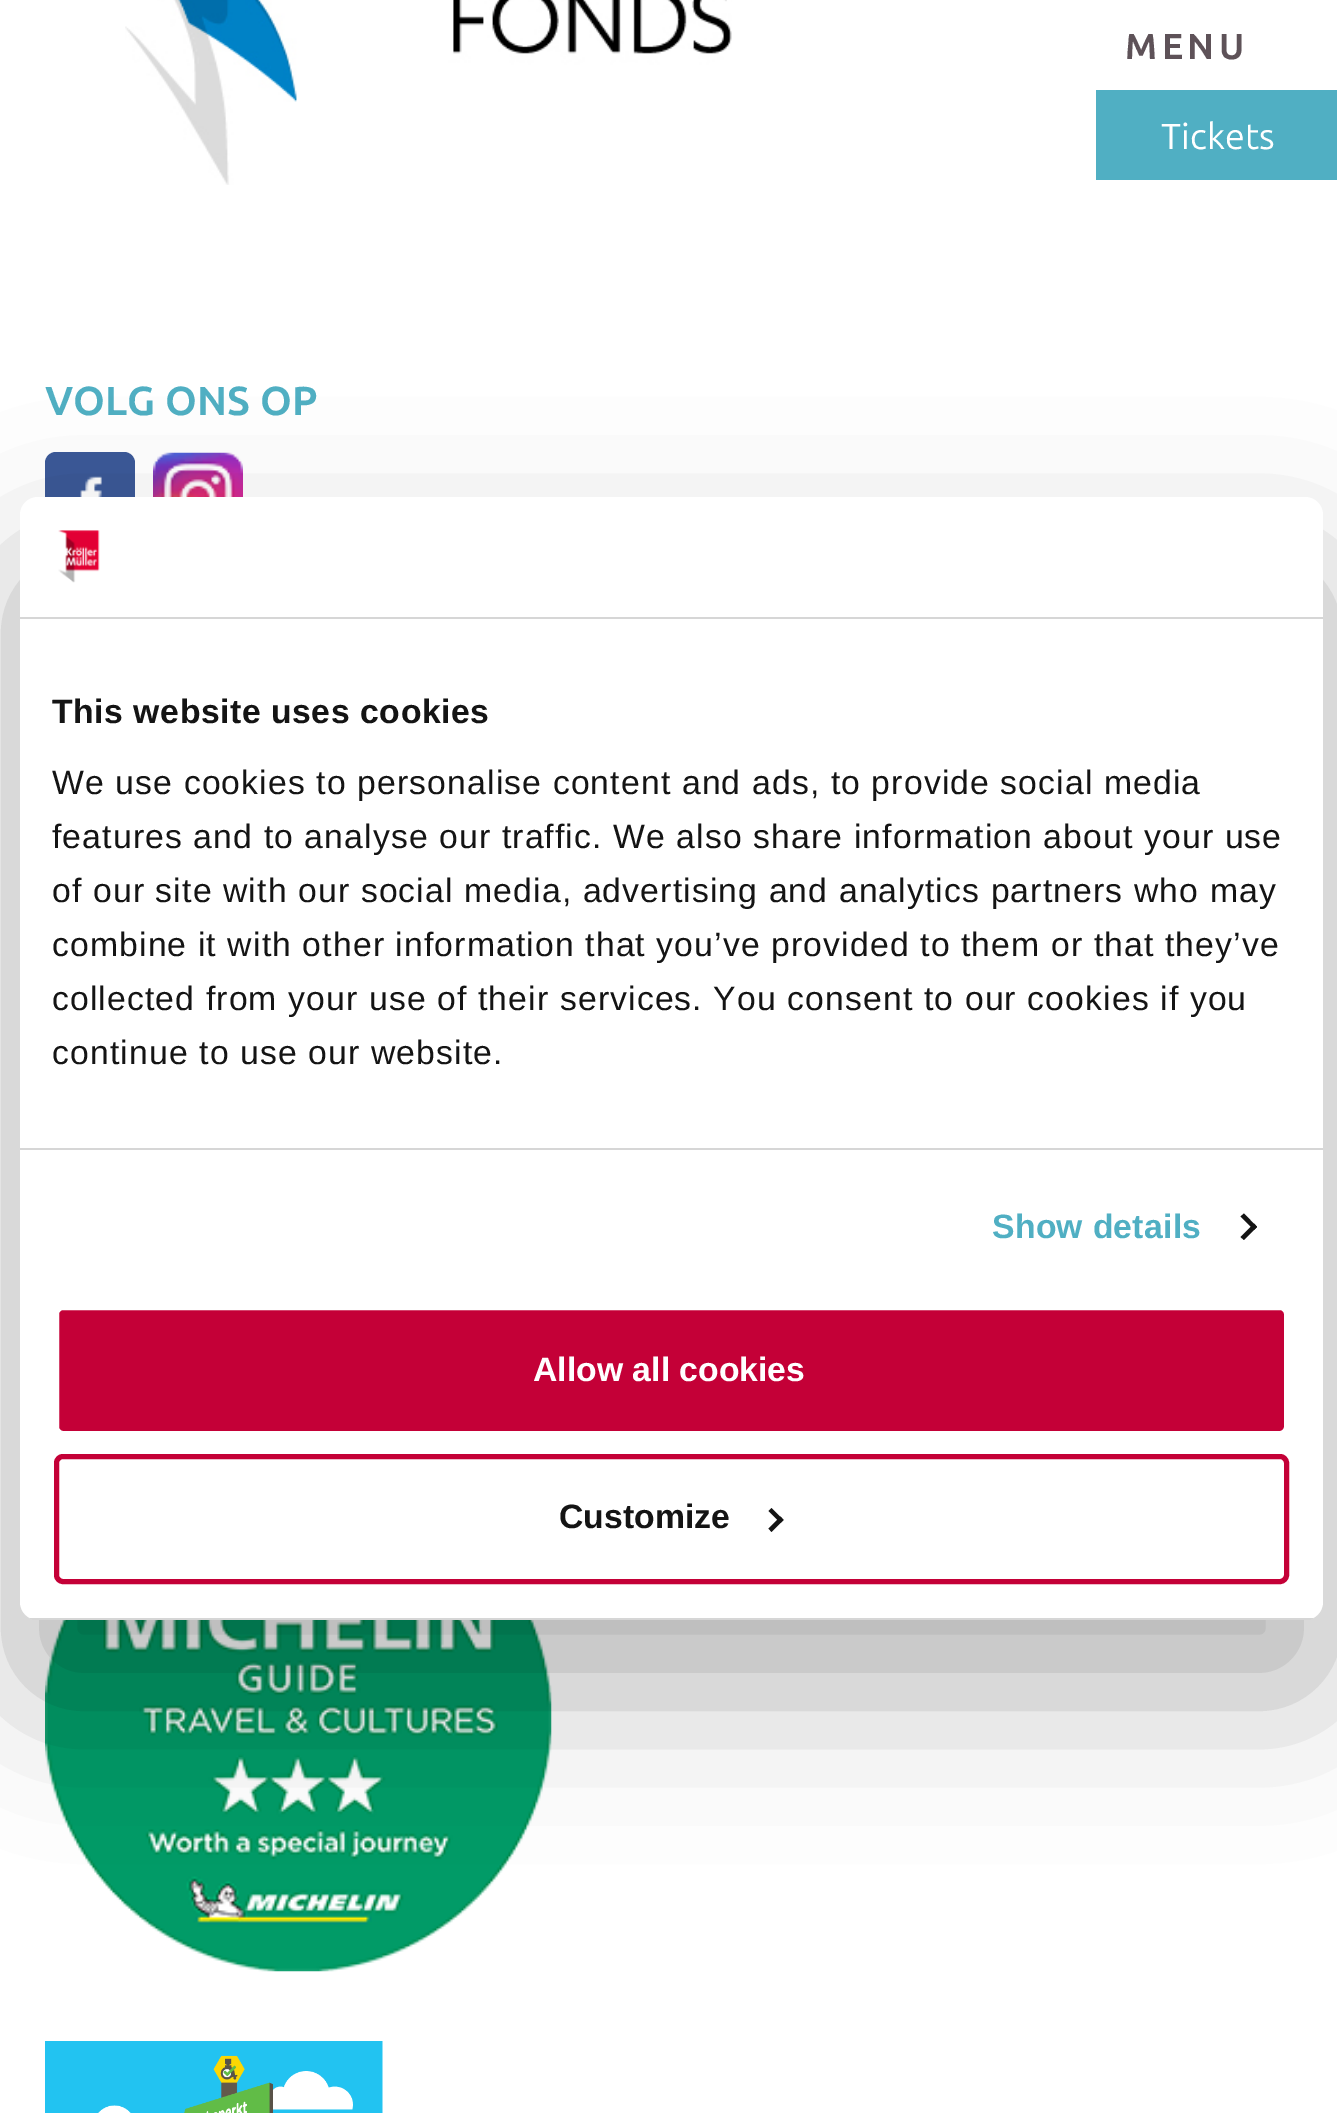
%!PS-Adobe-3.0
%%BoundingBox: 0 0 1337 2113
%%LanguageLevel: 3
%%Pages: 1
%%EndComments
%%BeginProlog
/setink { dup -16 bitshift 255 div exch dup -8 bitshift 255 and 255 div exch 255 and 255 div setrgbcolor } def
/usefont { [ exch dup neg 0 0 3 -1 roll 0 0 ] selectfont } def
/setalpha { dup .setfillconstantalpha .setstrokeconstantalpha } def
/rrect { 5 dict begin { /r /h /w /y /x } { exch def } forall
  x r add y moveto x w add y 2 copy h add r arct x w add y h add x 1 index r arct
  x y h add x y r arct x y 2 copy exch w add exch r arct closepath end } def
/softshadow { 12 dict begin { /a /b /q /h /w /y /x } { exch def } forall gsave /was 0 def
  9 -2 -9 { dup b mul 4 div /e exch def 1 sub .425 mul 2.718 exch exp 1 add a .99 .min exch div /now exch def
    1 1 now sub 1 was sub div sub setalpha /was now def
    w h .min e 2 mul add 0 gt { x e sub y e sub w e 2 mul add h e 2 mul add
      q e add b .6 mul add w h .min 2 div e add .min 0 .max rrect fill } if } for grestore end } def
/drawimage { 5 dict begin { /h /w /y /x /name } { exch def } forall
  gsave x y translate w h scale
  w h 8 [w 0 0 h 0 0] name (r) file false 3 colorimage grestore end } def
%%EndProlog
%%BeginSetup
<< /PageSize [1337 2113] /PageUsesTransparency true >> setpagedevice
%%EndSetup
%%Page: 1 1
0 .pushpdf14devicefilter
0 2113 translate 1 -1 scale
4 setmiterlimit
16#FFFFFF setink
0 0 1337 2113 rectfill
/Ubuntu-Bold 36 usefont
16#5E5258 setink
1125 59 moveto 4.5 0 (MENU) ashow
16#50AFC3 setink
1096 90 241 90 rectfill
/Ubuntu-Regular 36 usefont
16#FFFFFF setink
1161 149 moveto (Tickets) show
(img1.raw) 125 0 607 185 drawimage
/Ubuntu-Bold 40.5 usefont
16#50AFC3 setink
45 415 moveto (VOLG ONS OP) show
16#3B5998 setink
45 452 90 90 11 rrect fill
(img2.raw) 80 476 22 21 drawimage
(img3.raw) 153 452 90 45 drawimage
(img4.raw) 45 1620 507 352 drawimage
(img5.raw) 45 2041 338 72 drawimage
16#000000 setink
20 569 1303 1123 18 76.5 0.3 softshadow
16#FFFFFF setink
20 497 1303 1123 18 rrect fill
16#D6D6D6 setink
20 617 1303 2 rectfill
(img6.raw) 58 530 42 53 drawimage
20 1148 1303 2 rectfill
/LiberationSans-Bold 33.75 usefont
16#141414 setink
52 723 moveto 0.55 0 (This website uses cookies) ashow
/LiberationSans-Regular 33.75 usefont
52 794 moveto 1.12 0 (We use cookies to personalise content and ads, to provide social media) ashow
52 848 moveto 1.12 0 (features and to analyse our traffic. We also share information about your use) ashow
52 902 moveto 1.12 0 (of our site with our social media, advertising and analytics partners who may) ashow
52 956 moveto 1.12 0 (combine it with other information that you’ve provided to them or that they’ve) ashow
52 1010 moveto 1.12 0 (collected from your use of their services. You consent to our cookies if you) ashow
52 1064 moveto 1.12 0 (continue to use our website.) ashow
/LiberationSans-Bold 33.75 usefont
16#50AFC3 setink
992 1238 moveto 0.25 0 (Show details) ashow
16#141414 setink
1244 1213.5 moveto 1257 1227 lineto 1254 1230 lineto 1240.5 1216.5 lineto closepath fill
1254 1223.5 moveto 1257 1227 lineto 1244 1240 lineto 1240.5 1237 lineto closepath fill
gsave
20 497 1303 1123 18 rrect clip newpath
16#D6D6D6 setink
30 1618 1283 2 rectfill
grestore
16#C40037 setink
56.5 1307.5 1230 126 6.5 rrect gsave fill grestore
16#FFFFFF setink
5 setlinewidth
stroke
533 1381 moveto (Allow all cookies) show
16#C40037 setink
56.5 1456.5 1230 125 6.5 rrect stroke
16#141414 setink
559 1528 moveto (Customize) show
771.5 1508 moveto 783.5 1520 lineto 780.5 1523 lineto 768.5 1511 lineto closepath fill
780.5 1516.5 moveto 783.5 1520 lineto 771.5 1532 lineto 768.5 1528.5 lineto closepath fill
.poppdf14devicefilter showpage
%%EOF
